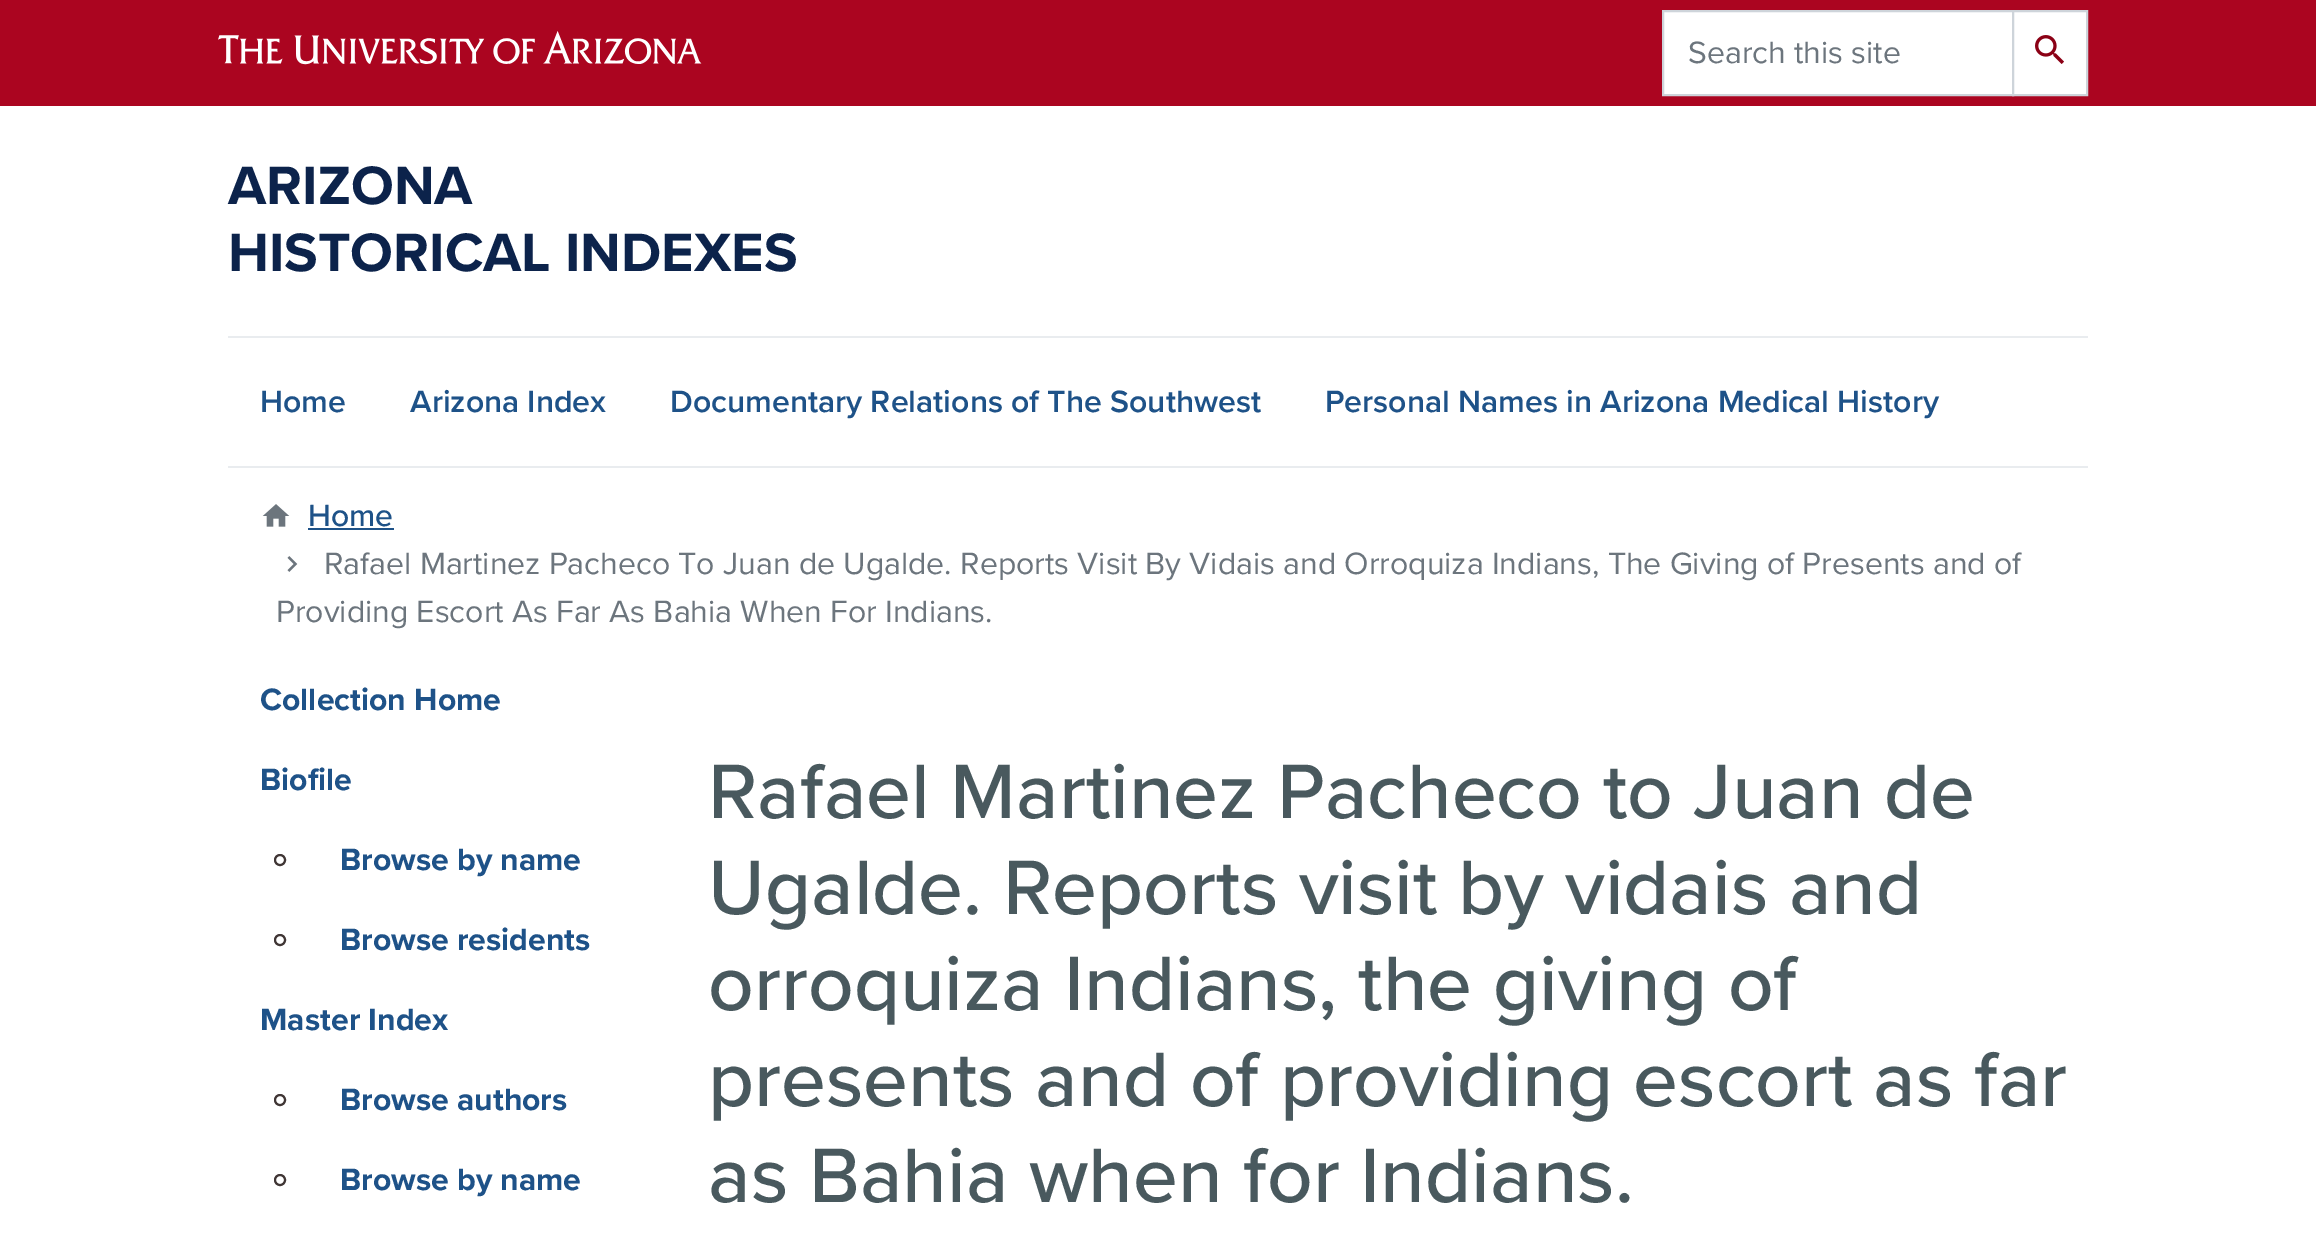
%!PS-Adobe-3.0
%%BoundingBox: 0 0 2316 1248
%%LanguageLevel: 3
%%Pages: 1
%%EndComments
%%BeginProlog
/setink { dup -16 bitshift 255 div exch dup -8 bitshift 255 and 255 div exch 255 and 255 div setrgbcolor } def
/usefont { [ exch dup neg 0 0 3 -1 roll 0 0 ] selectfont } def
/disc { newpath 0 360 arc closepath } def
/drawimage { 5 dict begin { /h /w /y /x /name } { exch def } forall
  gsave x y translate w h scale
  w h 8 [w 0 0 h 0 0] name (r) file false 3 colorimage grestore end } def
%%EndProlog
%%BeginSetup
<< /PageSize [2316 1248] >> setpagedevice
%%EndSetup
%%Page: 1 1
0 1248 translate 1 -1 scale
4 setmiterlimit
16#FFFFFF setink
0 0 2316 1248 rectfill
16#AB0520 setink
0 0 2316 106 rectfill
(img1.raw) 218 31 484 34 drawimage
16#FFFFFF setink
1663 11 moveto 2013 11 lineto 2013 95 lineto 1663 95 lineto closepath gsave fill grestore
16#CED4DA setink
2 setlinewidth
stroke
/ProximaNova-Regular 32 usefont
16#6C757D setink
1688 63 moveto (Search this site) show
16#FFFFFF setink
2013 11 moveto 2087 11 lineto 2087 95 lineto 2013 95 lineto closepath gsave fill grestore
16#CED4DA setink
stroke
(img2.raw) 2035 35 29 29 drawimage
/ProximaNova-Bold 56 usefont
16#0C234B setink
228 204 moveto (ARIZONA) show
228 271 moveto (HISTORICAL INDEXES) show
16#E9ECEF setink
228 336 1860 2 rectfill
228 466 1860 2 rectfill
/ProximaNova-SemiBold 32 usefont
16#1E5288 setink
[
    [(Home) 260 412]
    [(Arizona Index) 410 412]
    [(Documentary Relations of The Southwest) 670 412]
    [(Personal Names in Arizona Medical History) 1325 412]
] { aload pop moveto show } forall
(img3.raw) 262 504 28 23 drawimage
/ProximaNova-Medium 32 usefont
308 526 moveto (Home) show
308 528 86 2 rectfill
(img4.raw) 287 556 11 16 drawimage
/ProximaNova-Regular 32 usefont
16#6C757D setink
324 574 moveto (Rafael Martinez Pacheco To Juan de Ugalde. Reports Visit By Vidais and Orroquiza Indians, The Giving of Presents and of) show
276 622 moveto (Providing Escort As Far As Bahia When For Indians.) show
/ProximaNova-Bold 32 usefont
16#1E5288 setink
260 710 moveto (Collection Home) show
260 790 moveto (Biofile) show
16#403635 setink
280 860 5 disc stroke
16#1E5288 setink
340 870 moveto (Browse by name) show
16#403635 setink
280 940 5 disc stroke
16#1E5288 setink
340 950 moveto (Browse residents) show
260 1030 moveto (Master Index) show
16#403635 setink
280 1100 5 disc stroke
16#1E5288 setink
340 1110 moveto (Browse authors) show
16#403635 setink
280 1180 5 disc stroke
16#1E5288 setink
340 1190 moveto (Browse by name) show
/ProximaNova-Medium 80 usefont
16#49595E setink
[
    [(Rafael Martinez Pacheco to Juan de) 708 818]
    [(Ugalde. Reports visit by vidais and) 708 914]
    [(orroquiza Indians, the giving of) 708 1010]
    [(presents and of providing escort as far) 708 1106]
    [(as Bahia when for Indians.) 708 1202]
] { aload pop moveto show } forall
showpage
%%EOF
